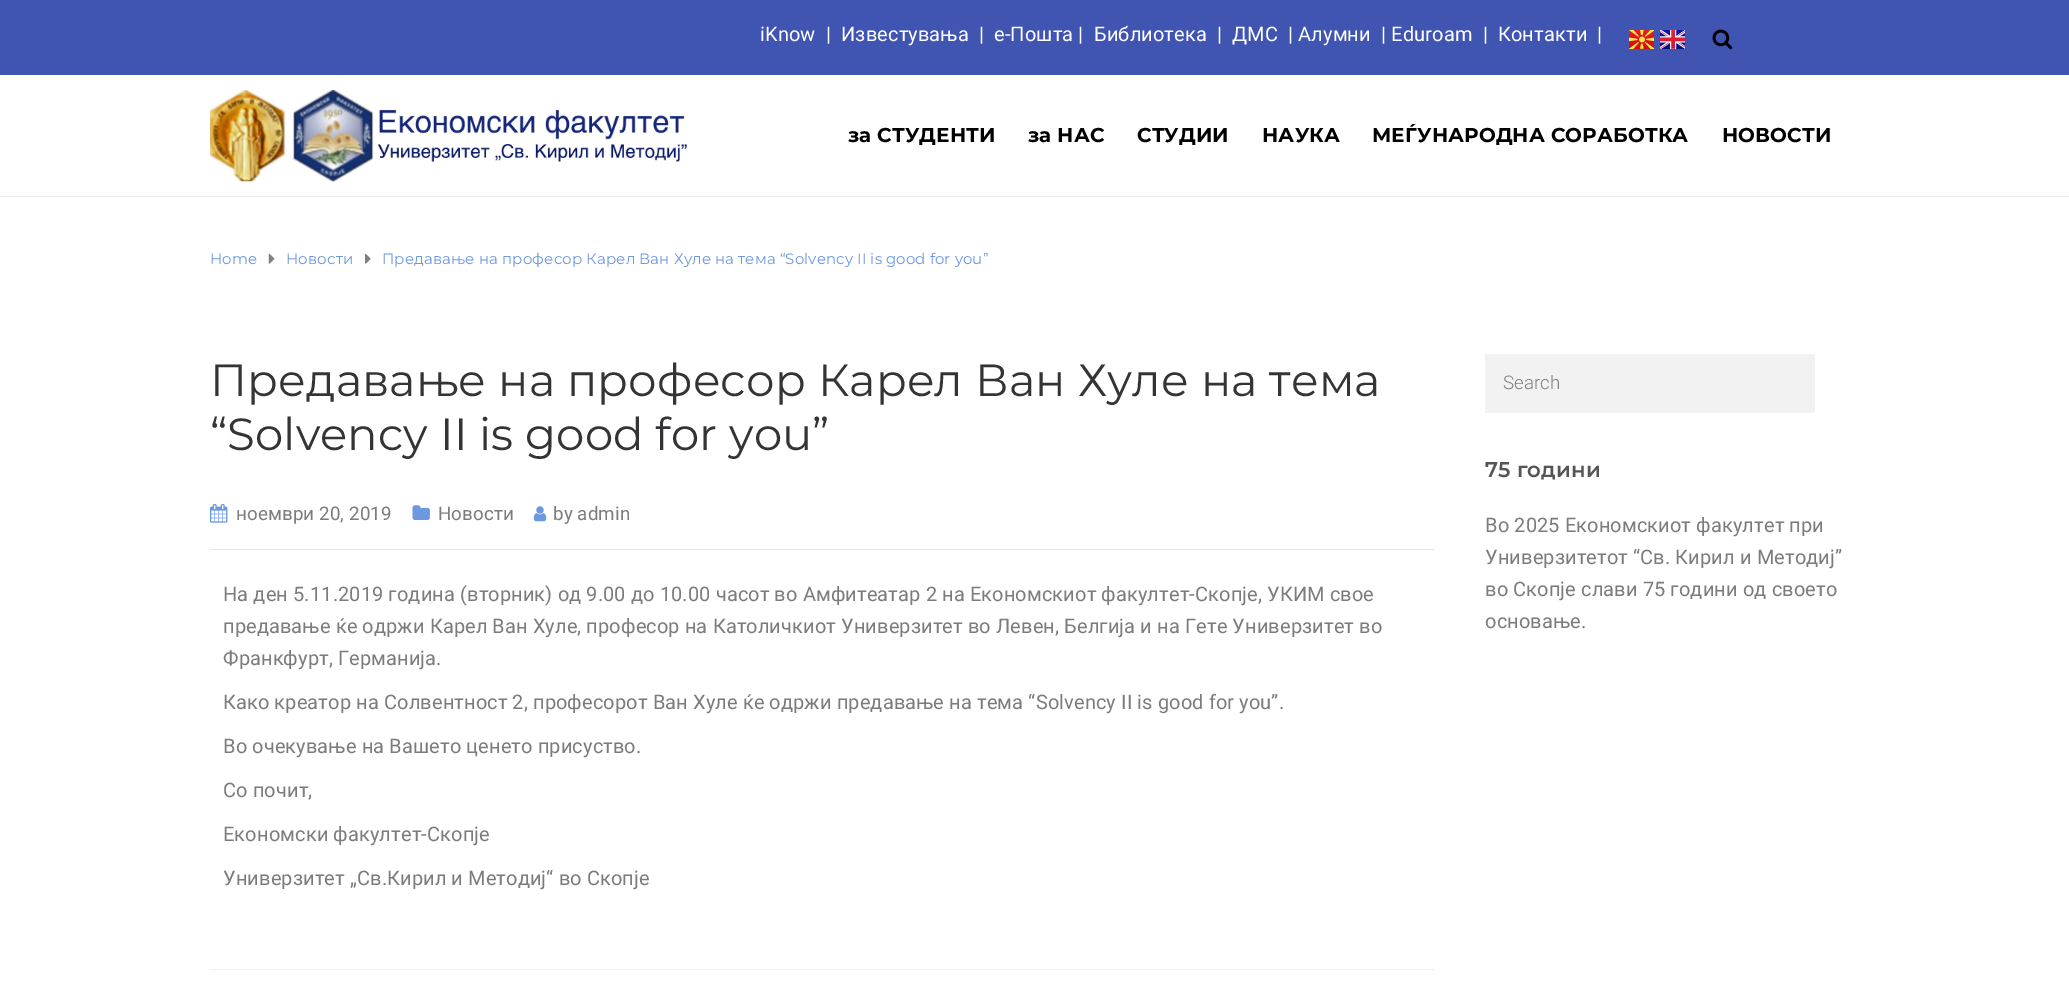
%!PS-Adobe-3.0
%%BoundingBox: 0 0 2069 982
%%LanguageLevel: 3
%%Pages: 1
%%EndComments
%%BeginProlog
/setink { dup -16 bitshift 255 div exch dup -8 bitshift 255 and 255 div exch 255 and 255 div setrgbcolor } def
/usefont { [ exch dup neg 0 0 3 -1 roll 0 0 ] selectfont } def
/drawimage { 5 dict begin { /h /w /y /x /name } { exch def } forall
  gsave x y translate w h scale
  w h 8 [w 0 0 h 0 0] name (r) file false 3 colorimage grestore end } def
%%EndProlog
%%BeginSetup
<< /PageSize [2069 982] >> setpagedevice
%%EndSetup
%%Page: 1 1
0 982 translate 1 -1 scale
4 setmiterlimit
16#FFFFFF setink
0 0 2069 982 rectfill
16#EBEBEB setink
0 196 2069 1 rectfill
16#4054B2 setink
0 0 2069 75 rectfill
/Roboto-Regular 20 usefont
16#FFFFFF setink
760 41 moveto 0.12 0 (iKnow) ashow
826 41 moveto 0.12 0 (|) ashow
841 41 moveto 0.12 0 (Известувања) ashow
979 41 moveto 0.12 0 (|) ashow
994 41 moveto 0.12 0 (е-Пошта |) ashow
1094 41 moveto 0.12 0 (Библиотека) ashow
1217 41 moveto 0.12 0 (|) ashow
1232 41 moveto 0.12 0 (ДМС) ashow
1288 41 moveto 0.12 0 (| Aлумни) ashow
1381 41 moveto 0.12 0 (| Eduroam) ashow
1483 41 moveto 0.12 0 (|) ashow
1498 41 moveto 0.12 0 (Контакти) ashow
1597 41 moveto 0.12 0 (|) ashow
(img1.raw) 1629 30 25 19 drawimage
(img2.raw) 1660 30 25 19 drawimage
(img3.raw) 1712 29 21 21 drawimage
(img4.raw) 210 90 478 92 drawimage
/Montserrat-Bold 20 usefont
16#000000 setink
848 142 moveto 0.12 0 (за СТУДЕНТИ) ashow
1028 142 moveto 0.12 0 (за НАС) ashow
1137 142 moveto 0.12 0 (СТУДИИ) ashow
1262 142 moveto 0.12 0 (НАУКА) ashow
1372 142 moveto 0.12 0 (МЕЃУНАРОДНА СОРАБОТКА) ashow
1722 142 moveto 0.12 0 (НОВОСТИ) ashow
/Montserrat-Regular 15 usefont
16#6C98E1 setink
210 264 moveto 0.12 0 (Home) ashow
(img5.raw) 268 253 7 11 drawimage
286 264 moveto 0.12 0 (Новости) ashow
(img6.raw) 365 253 6 11 drawimage
382 264 moveto 0.12 0 (Предавање на професор Карел Ван Хуле на тема “Solvency II is good for you”) ashow
/Montserrat-Regular 45 usefont
16#333436 setink
210 396 moveto 0.12 0 (Предавање на професор Карел Ван Хуле на тема) ashow
210 450 moveto 0.12 0 (“Solvency II is good for you”) ashow
16#E6E6E6 setink
210 549 1225 1 rectfill
(img7.raw) 210 503 18 20 drawimage
/Roboto-Regular 18.75 usefont
16#7C7C7C setink
236 520 moveto 0.12 0 (ноември 20, 2019) ashow
(img8.raw) 412 505 18 15 drawimage
438 520 moveto 0.12 0 (Новости) ashow
(img9.raw) 533 506 14 16 drawimage
553 520 moveto 0.12 0 (by admin) ashow
/Roboto-Regular 20 usefont
223 601 moveto 0.12 0 (На ден 5.11.2019 година \(вторник\) од 9.00 до 10.00 часот во Амфитеатар 2 на Економскиот факултет-Скопје, УКИМ свое) ashow
223 633 moveto 0.12 0 (предавање ќе одржи Карел Ван Хуле, професор на Католичкиот Универзитет во Левен, Белгија и на Гете Универзитет во) ashow
223 665 moveto 0.12 0 (Франкфурт, Германија.) ashow
223 709 moveto 0.12 0 (Како креатор на Солвентност 2, професорот Ван Хуле ќе одржи предавање на тема “Solvency II is good for you”.) ashow
223 753 moveto 0.12 0 (Во очекување на Вашето ценето присуство.) ashow
223 797 moveto 0.12 0 (Со почит,) ashow
223 841 moveto 0.12 0 (Економски факултет-Скопје) ashow
223 885 moveto 0.12 0 (Универзитет „Св.Кирил и Методиј“ во Скопје) ashow
16#EEEEEE setink
210 969 1225 1 rectfill
16#F2F2F2 setink
1485 354 330 59 rectfill
/Roboto-Light 18.75 usefont
16#7B8085 setink
1503 389 moveto (Search) show
/Montserrat-SemiBold 21.25 usefont
16#555555 setink
1485 477 moveto 0.12 0 (75 години) ashow
/Roboto-Regular 20 usefont
16#7C7C7C setink
1485 532 moveto 0.12 0 (Во 2025 Економскиот факултет при) ashow
1485 564 moveto 0.12 0 (Универзитетот “Св. Кирил и Методиј”) ashow
1485 596 moveto 0.12 0 (во Скопје слави 75 години од своето) ashow
1485 628 moveto 0.12 0 (основање.) ashow
showpage
%%EOF
